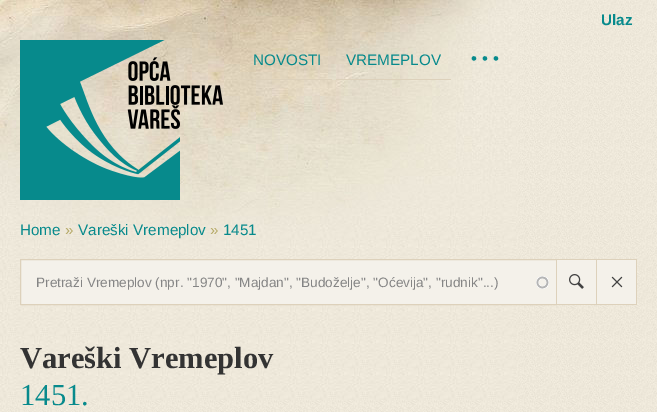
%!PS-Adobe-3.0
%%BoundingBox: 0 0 657 412
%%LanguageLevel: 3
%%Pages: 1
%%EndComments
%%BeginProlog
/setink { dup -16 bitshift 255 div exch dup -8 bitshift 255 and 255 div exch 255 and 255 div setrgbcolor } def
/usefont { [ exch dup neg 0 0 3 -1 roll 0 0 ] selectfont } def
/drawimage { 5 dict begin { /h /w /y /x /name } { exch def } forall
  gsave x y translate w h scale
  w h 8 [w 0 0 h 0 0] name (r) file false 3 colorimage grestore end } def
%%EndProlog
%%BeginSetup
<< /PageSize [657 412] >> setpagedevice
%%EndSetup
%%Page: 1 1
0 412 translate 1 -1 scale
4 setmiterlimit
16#FFFFFF setink
0 0 657 412 rectfill
(img1.raw) 0 0 657 412 drawimage
(img2.raw) 0 0 516 400 drawimage
/LiberationSans-Bold 15.25 usefont
16#078A8C setink
601 25 moveto (Ulaz) show
(img3.raw) 20 40 203 160 drawimage
16#DDD1BB setink
243 79 89 1 rectfill
/LiberationSans-Regular 15.25 usefont
16#078A8C setink
253 65 moveto (NOVOSTI) show
16#DDD1BB setink
336 79 115 1 rectfill
16#078A8C setink
346 65 moveto (VREMEPLOV) show
/LiberationSans-Regular 17 usefont
471 64 moveto 5 0 (•••) ashow
/LiberationSans-Regular 15.25 usefont
20 235 moveto (Home) show
16#B7AB69 setink
65 235 moveto (») show
16#078A8C setink
78 235 moveto (Vareški Vremeplov) show
16#B7AB69 setink
210 235 moveto (») show
16#078A8C setink
223 235 moveto (1451) show
16#F4F1EA setink
21 260 535 44 rectfill
(img4.raw) 536 276 13 13 drawimage
16#DDD1BB setink
20.5 259.5 536 45 rectstroke
/LiberationSans-Regular 13.6 usefont
16#858585 setink
36 287 moveto (Pretraži Vremeplov \(npr. "1970", "Majdan", "Budoželje", "Oćevija", "rudnik"...\)) show
16#F4F1EA setink
557 260 39 44 rectfill
(img5.raw) 569 274 15 15 drawimage
[
    [557 259 80 1 16#DDD1BB]
    [596 259 1 46 16#DDD1BB]
    [557 304 40 1 16#DDD1BB]
    [597 260 39 44 16#F4F1EA]
] { aload pop setink rectfill } forall
(img6.raw) 611 276 12 12 drawimage
16#DDD1BB setink
636 259 1 46 rectfill
597 304 40 1 rectfill
/LiberationSerif-Bold 30.5 usefont
16#333333 setink
20 368 moveto (Vareški Vremeplov) show
/LiberationSerif-Regular 30.5 usefont
16#078A8C setink
20 405 moveto (1451.) show
showpage
%%EOF
